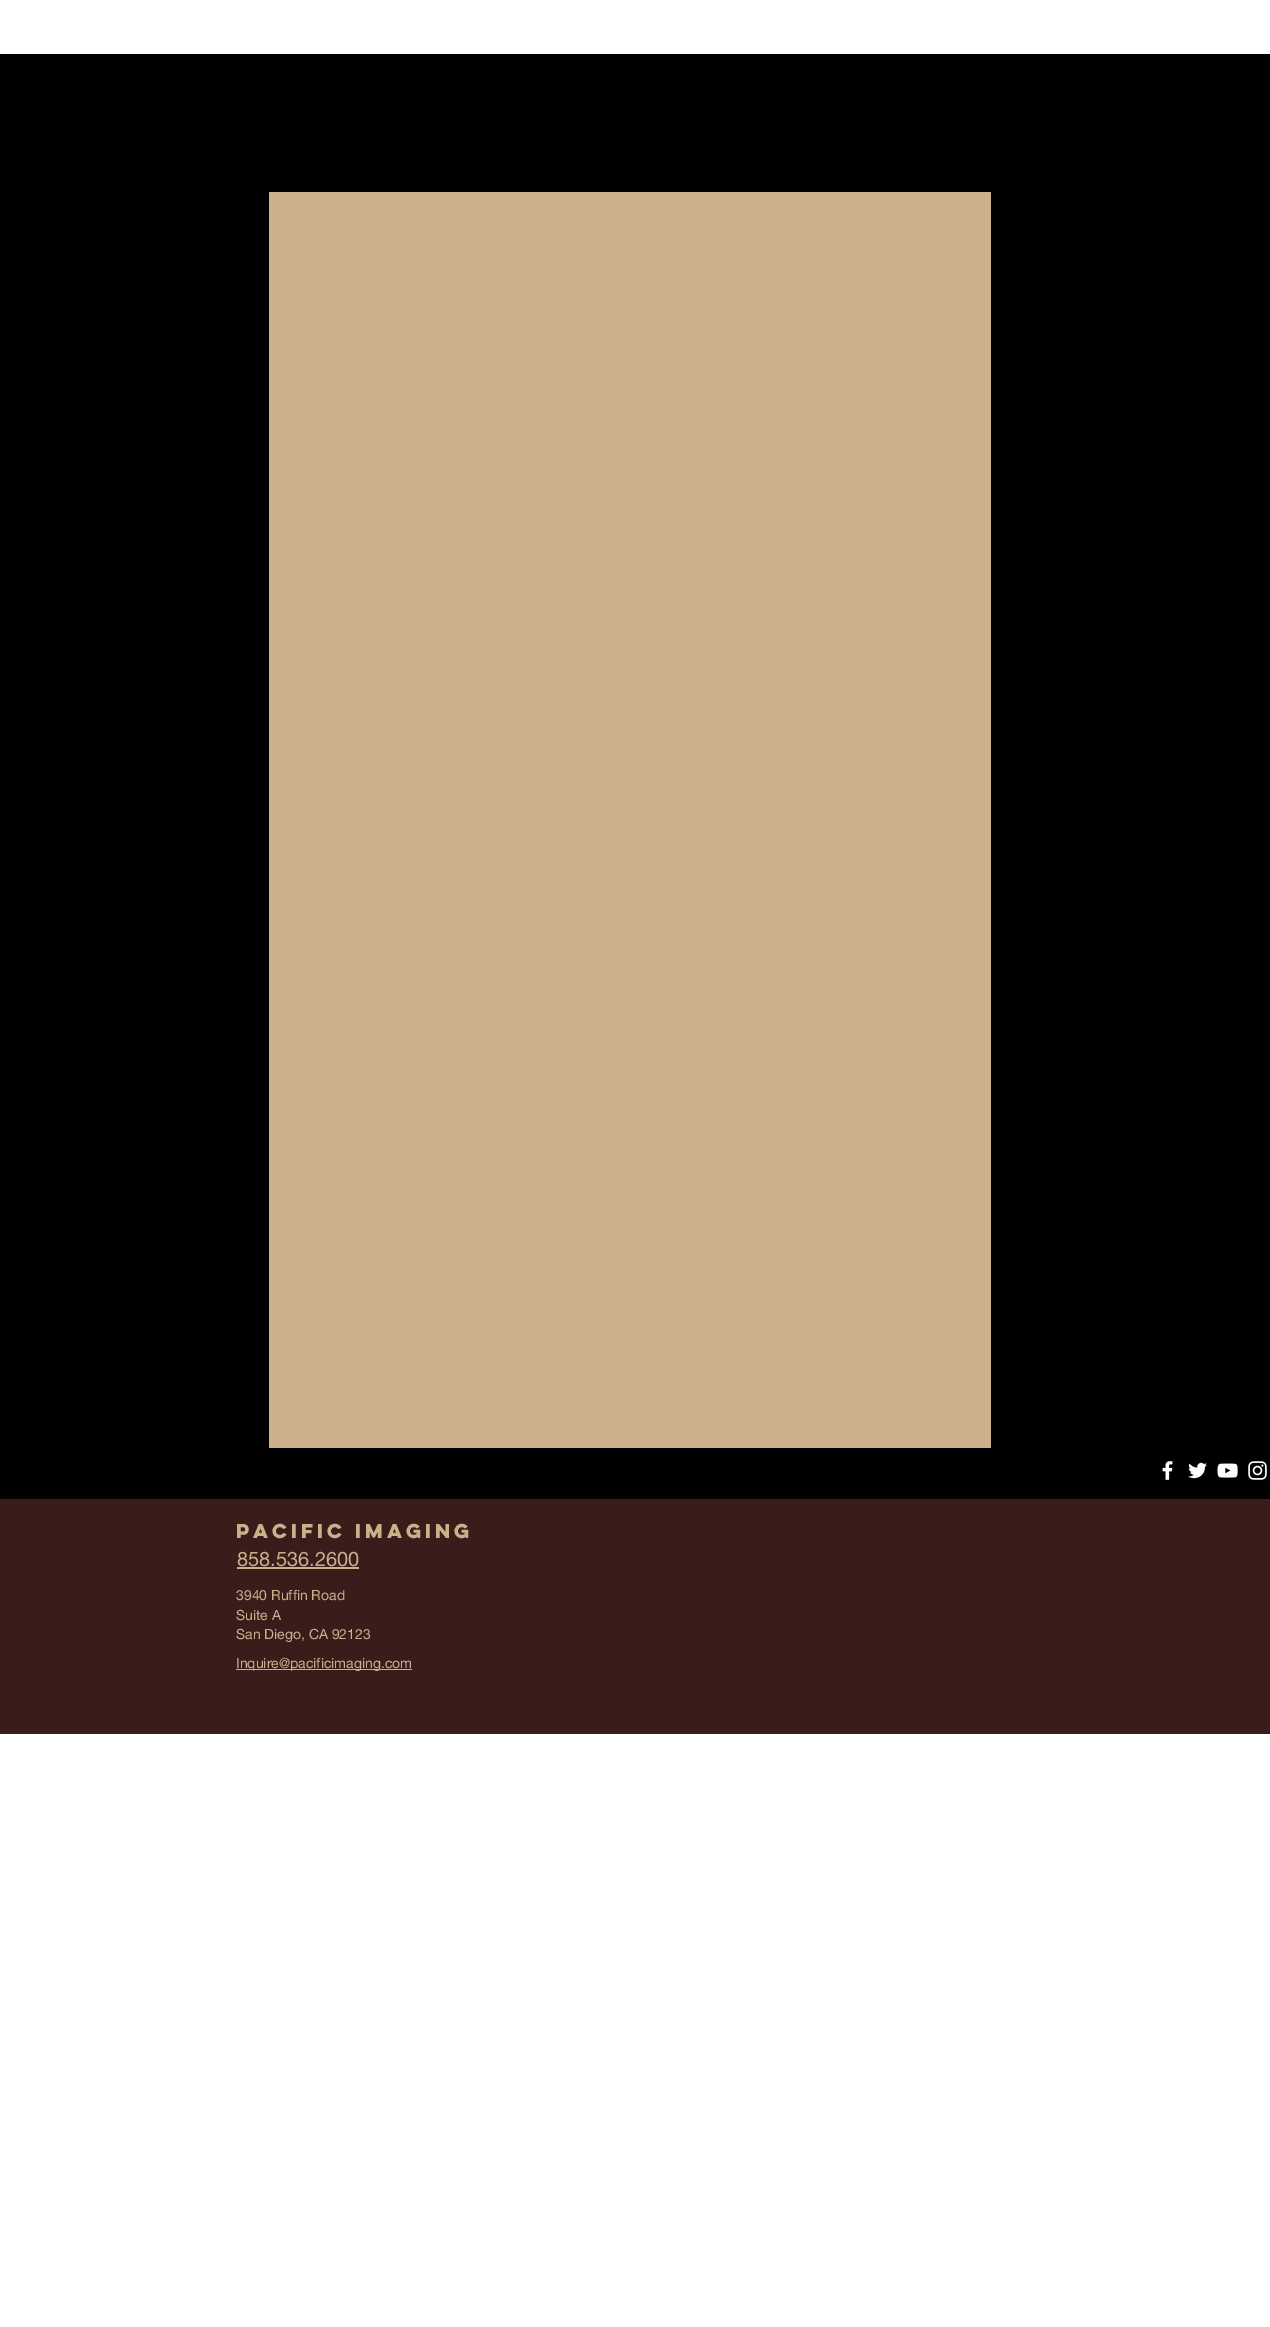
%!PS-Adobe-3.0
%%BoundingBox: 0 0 1270 2327
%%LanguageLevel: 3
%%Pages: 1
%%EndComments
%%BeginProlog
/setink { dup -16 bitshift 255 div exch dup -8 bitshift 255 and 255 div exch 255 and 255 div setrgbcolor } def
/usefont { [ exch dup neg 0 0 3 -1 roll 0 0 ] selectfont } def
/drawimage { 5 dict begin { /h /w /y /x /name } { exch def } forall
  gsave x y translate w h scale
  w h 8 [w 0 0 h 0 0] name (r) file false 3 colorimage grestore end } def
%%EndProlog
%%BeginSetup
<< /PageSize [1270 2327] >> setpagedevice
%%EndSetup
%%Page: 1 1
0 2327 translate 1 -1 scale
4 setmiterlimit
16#FFFFFF setink
0 0 1270 2327 rectfill
16#000000 setink
0 54 1270 1445 rectfill
16#CDAF8C setink
269 192 722 1256 rectfill
(img1.raw) 1162 1461 11 19 drawimage
(img2.raw) 1188 1462 19 17 drawimage
(img3.raw) 1217 1463 21 15 drawimage
(img4.raw) 1248 1461 19 19 drawimage
16#381D1B setink
0 1499 1270 235 rectfill
/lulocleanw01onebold-Bold 18 usefont
16#CDAF8C setink
236 1538 moveto (Pacific Imaging) show
/helveticaneue-Regular 20 usefont
237 1566 moveto (858.536.2600) show
237 1567 122 2 rectfill
/helveticaneue-Regular 14 usefont
[
    [(3940 Ruffin Road) 236 1600]
    [(Suite A) 236 1620]
    [(San Diego, CA 92123) 236 1639]
] { aload pop moveto show } forall
236 1669 176 1 rectfill
236 1668 moveto (Inquire@pacificimaging.com) show
showpage
%%EOF
